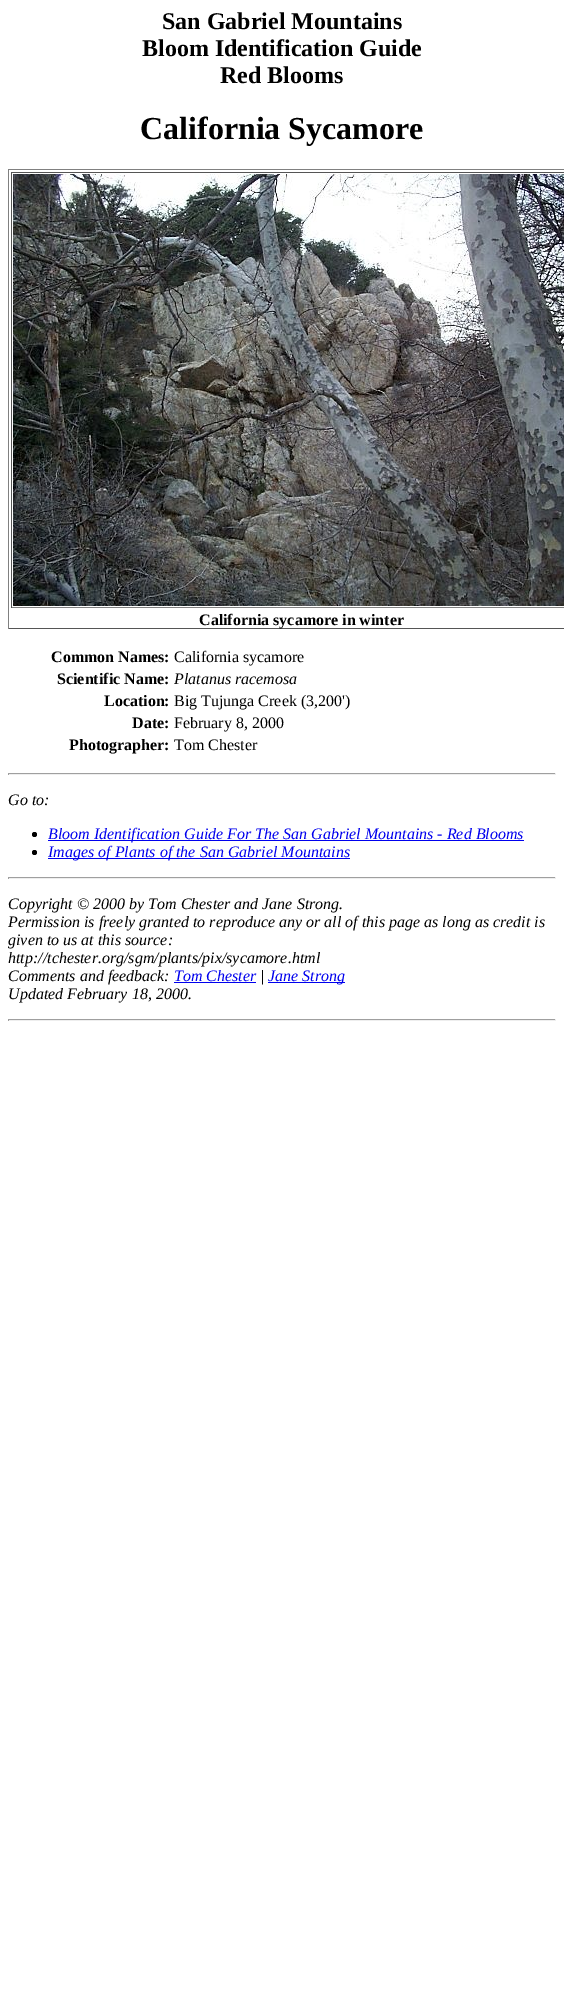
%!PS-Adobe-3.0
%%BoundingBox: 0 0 564 1994
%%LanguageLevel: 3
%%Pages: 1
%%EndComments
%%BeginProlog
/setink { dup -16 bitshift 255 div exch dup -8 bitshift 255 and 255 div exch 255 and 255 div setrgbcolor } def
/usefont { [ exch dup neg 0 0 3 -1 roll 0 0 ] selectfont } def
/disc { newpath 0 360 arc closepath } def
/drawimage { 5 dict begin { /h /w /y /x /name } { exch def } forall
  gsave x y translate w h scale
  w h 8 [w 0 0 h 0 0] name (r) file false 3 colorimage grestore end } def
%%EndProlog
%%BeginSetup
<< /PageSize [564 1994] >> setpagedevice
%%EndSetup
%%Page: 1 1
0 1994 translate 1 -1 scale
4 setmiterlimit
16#FFFFFF setink
0 0 564 1994 rectfill
/LiberationSerif-Bold 24 usefont
16#000000 setink
[
    [(San Gabriel Mountains) 162 29]
    [(Bloom Identification Guide) 142 56]
    [(Red Blooms) 220 83]
] { aload pop moveto show } forall
/LiberationSerif-Bold 32 usefont
140 139 moveto (California Sycamore) show
[
    [8 169 556 1 16#808080]
    [8 628 556 1 16#555555]
    [8 169 1 460 16#808080]
    [11 172 553 1 16#555555]
    [11 607 553 1 16#808080]
    [11 172 1 436 16#555555]
] { aload pop setink rectfill } forall
(img1.raw) 13 174 551 432 drawimage
/LiberationSerif-Bold 16 usefont
16#000000 setink
199 625 moveto (California sycamore in winter) show
51 662 moveto (Common Names:) show
/LiberationSerif-Regular 16 usefont
174 662 moveto (California sycamore) show
/LiberationSerif-Bold 16 usefont
57 684 moveto (Scientific Name:) show
/LiberationSerif-Italic 16 usefont
174 684 moveto (Platanus racemosa) show
/LiberationSerif-Bold 16 usefont
104 706 moveto (Location:) show
/LiberationSerif-Regular 16 usefont
174 706 moveto (Big Tujunga Creek \(3,200'\)) show
/LiberationSerif-Bold 16 usefont
132 728 moveto (Date:) show
/LiberationSerif-Regular 16 usefont
174 728 moveto (February 8, 2000) show
/LiberationSerif-Bold 16 usefont
69 750 moveto (Photographer:) show
/LiberationSerif-Regular 16 usefont
174 750 moveto (Tom Chester) show
[
    [8 773 548 1 16#9F9F9F]
    [555 773 1 2 16#EEEEEE]
    [8 774 548 1 16#EEEEEE]
    [8 773 1 2 16#9F9F9F]
] { aload pop setink rectfill } forall
/LiberationSerif-Italic 16 usefont
16#000000 setink
8 805 moveto (Go to:) show
34.5 834.5 2.5 disc fill
16#0000EE setink
48 840 476 1 rectfill
48 839 moveto (Bloom Identification Guide For The San Gabriel Mountains - Red Blooms) show
16#000000 setink
34.5 852.5 2.5 disc fill
16#0000EE setink
48 858 302 1 rectfill
48 857 moveto (Images of Plants of the San Gabriel Mountains) show
[
    [8 877 548 1 16#9F9F9F]
    [555 877 1 2 16#EEEEEE]
    [8 878 548 1 16#EEEEEE]
    [8 877 1 2 16#9F9F9F]
] { aload pop setink rectfill } forall
16#000000 setink
[
    [(Copyright © 2000 by Tom Chester and Jane Strong.) 8 909]
    [(Permission is freely granted to reproduce any or all of this page as long as credit is) 8 927]
    [(given to us at this source:) 8 945]
    [(http://tchester.org/sgm/plants/pix/sycamore.html) 8 963]
    [(Comments and feedback:) 8 981]
] { aload pop moveto show } forall
16#0000EE setink
174 981 moveto (Tom Chester) show
174 982 82 1 rectfill
16#000000 setink
260 981 moveto (|) show
16#0000EE setink
268 982 77 1 rectfill
268 981 moveto (Jane Strong) show
16#000000 setink
8 999 moveto (Updated February 18, 2000.) show
[
    [8 1019 548 1 16#9F9F9F]
    [555 1019 1 2 16#EEEEEE]
    [8 1020 548 1 16#EEEEEE]
    [8 1019 1 2 16#9F9F9F]
] { aload pop setink rectfill } forall
showpage
%%EOF
